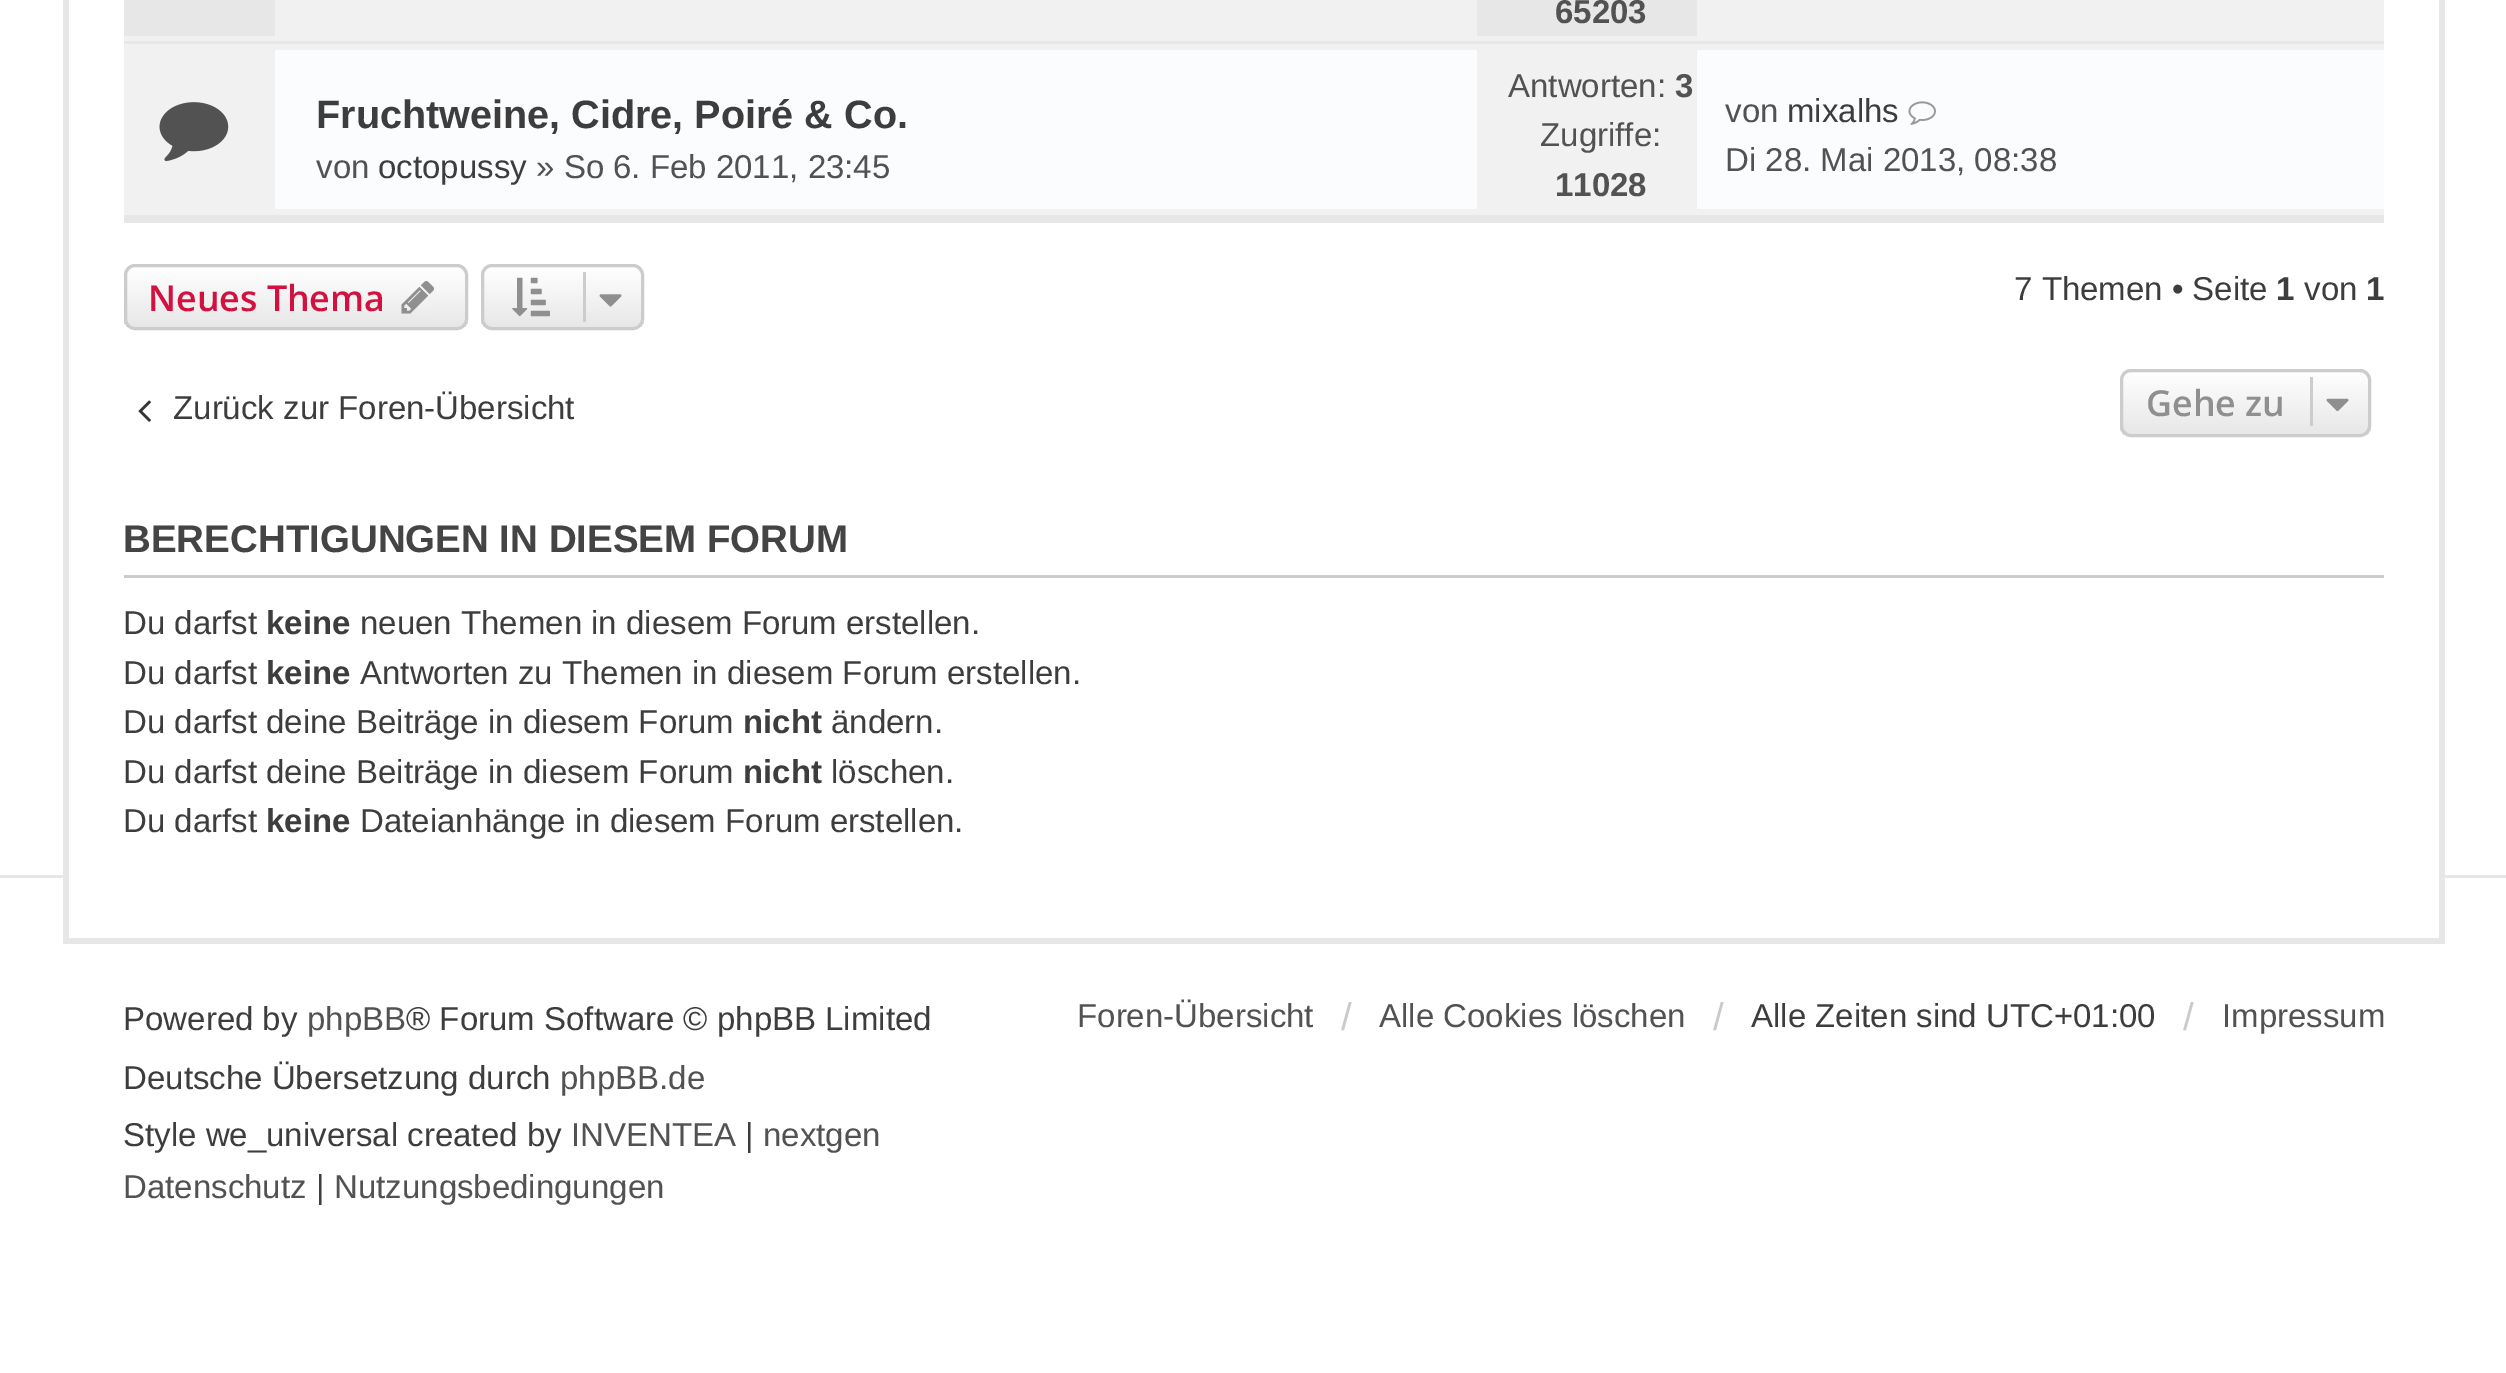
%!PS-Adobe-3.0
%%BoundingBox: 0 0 2506 1373
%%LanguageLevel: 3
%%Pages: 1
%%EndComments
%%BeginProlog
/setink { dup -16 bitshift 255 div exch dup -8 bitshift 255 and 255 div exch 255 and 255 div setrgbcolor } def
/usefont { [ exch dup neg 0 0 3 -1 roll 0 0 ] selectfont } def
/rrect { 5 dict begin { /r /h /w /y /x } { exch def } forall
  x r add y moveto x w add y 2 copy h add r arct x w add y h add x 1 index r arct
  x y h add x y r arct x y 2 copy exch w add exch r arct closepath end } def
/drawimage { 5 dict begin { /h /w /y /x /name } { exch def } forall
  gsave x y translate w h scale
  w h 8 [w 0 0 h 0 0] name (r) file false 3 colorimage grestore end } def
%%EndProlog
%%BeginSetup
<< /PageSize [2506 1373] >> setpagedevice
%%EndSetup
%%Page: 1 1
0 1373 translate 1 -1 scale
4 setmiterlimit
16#FFFFFF setink
0 0 2506 1373 rectfill
[
    [0 875 2506 3 16#E7E7E7]
    [69 875 2370 3 16#FFFFFF]
    [2439 0 6 943 16#E7E7E7]
    [63 938 2382 6 16#E7E7E7]
    [63 0 6 943 16#E7E7E7]
    [124 215 2260 8 16#E7E7E7]
    [124 0 2260 215 16#F1F1F1]
    [124 0 151 36 16#E7E7E7]
    [1477 0 220 36 16#E7E7E7]
] { aload pop setink rectfill } forall
/LiberationSans-Bold 33 usefont
16#525252 setink
1555 23 moveto (65203) show
16#E7E7E7 setink
124 41 2260 3 rectfill
(img1.raw) 159 102 70 60 drawimage
16#FAFCFE setink
275 50 1202 159 rectfill
/LiberationSans-Bold 39.6 usefont
16#3D3D3D setink
316 128 moveto (Fruchtweine, Cidre, Poiré & Co.) show
/LiberationSans-Regular 33 usefont
16#525252 setink
316 178 moveto (von) show
16#3D3D3D setink
378 178 moveto (octopussy) show
16#525252 setink
536 178 moveto (» So 6. Feb 2011, 23:45) show
1508 97 moveto (Antworten:) show
/LiberationSans-Bold 33 usefont
1675 97 moveto (3) show
/LiberationSans-Regular 33 usefont
1540 146 moveto (Zugriffe:) show
/LiberationSans-Bold 33 usefont
1555 196 moveto (11028) show
16#FAFCFE setink
1697 50 687 159 rectfill
/LiberationSans-Regular 33 usefont
16#525252 setink
1725 122 moveto (von) show
16#3D3D3D setink
1787 122 moveto (mixalhs) show
(img2.raw) 1908 101 28 24 drawimage
16#525252 setink
1725 171 moveto (Di 28. Mai 2013, 08:38) show
gsave
124 264 344 66 11 rrect clip newpath
gsave 124 267 moveto 468 267 lineto 468 327 lineto 124 327 lineto closepath clip newpath
<< /ShadingType 2 /ColorSpace /DeviceRGB /Coords [296 267 296 327] /Extend [true true] /Function << /FunctionType 2 /Domain [0 1] /C0 [1 1 1] /C1 [0.906 0.906 0.906] /N 1 >> >> shfill grestore
grestore
16#CCCCCC setink
3 setlinewidth
125.5 265.5 341 63 9.5 rrect stroke
/OpenSans-SemiBold 35.75 usefont
16#D31141 setink
148 311 moveto (Neues Thema) show
(img3.raw) 401 281 33 33 drawimage
gsave
481 264 163 66 11 rrect clip newpath
gsave 481 267 moveto 644 267 lineto 644 327 lineto 481 327 lineto closepath clip newpath
<< /ShadingType 2 /ColorSpace /DeviceRGB /Coords [562 267 562 327] /Extend [true true] /Function << /FunctionType 2 /Domain [0 1] /C0 [1 1 1] /C1 [0.906 0.906 0.906] /N 1 >> >> shfill grestore
grestore
16#CCCCCC setink
482.5 265.5 160 63 9.5 rrect stroke
(img4.raw) 512 277 38 40 drawimage
583 272 3 50 rectfill
(img5.raw) 599 294 23 13 drawimage
/LiberationSans-Regular 33 usefont
16#3D3D3D setink
2014 300 moveto (7 Themen • Seite) show
/LiberationSans-Bold 33 usefont
2276 300 moveto (1) show
/LiberationSans-Regular 33 usefont
2304 300 moveto (von) show
/LiberationSans-Bold 33 usefont
2366 300 moveto (1) show
(img6.raw) 138 400 13 22 drawimage
/LiberationSans-Regular 33 usefont
173 419 moveto (Zurück zur Foren-Übersicht) show
gsave
2120 369 251 68 11 rrect clip newpath
gsave 2120 371 moveto 2371 371 lineto 2371 435 lineto 2120 435 lineto closepath clip newpath
<< /ShadingType 2 /ColorSpace /DeviceRGB /Coords [2245 371 2245 435] /Extend [true true] /Function << /FunctionType 2 /Domain [0 1] /C0 [1 1 1] /C1 [0.906 0.906 0.906] /N 1 >> >> shfill grestore
grestore
16#CCCCCC setink
2121.5 370.5 248 65 9.5 rrect stroke
/OpenSans-SemiBold 35.75 usefont
16#8F8F8F setink
2146 416 moveto (Gehe zu) show
16#CCCCCC setink
2310 377 3 49 rectfill
(img7.raw) 2326 398 23 14 drawimage
124 575 2260 3 rectfill
/LiberationSans-Bold 38.5 usefont
16#444444 setink
123 552 moveto (BERECHTIGUNGEN IN DIESEM FORUM) show
/LiberationSans-Regular 33 usefont
16#3D3D3D setink
123 634 moveto (Du darfst) show
/LiberationSans-Bold 33 usefont
266 634 moveto (keine) show
/LiberationSans-Regular 33 usefont
360 634 moveto (neuen Themen in diesem Forum erstellen.) show
123 684 moveto (Du darfst) show
/LiberationSans-Bold 33 usefont
266 684 moveto (keine) show
/LiberationSans-Regular 33 usefont
360 684 moveto (Antworten zu Themen in diesem Forum erstellen.) show
123 733 moveto (Du darfst deine Beiträge in diesem Forum) show
/LiberationSans-Bold 33 usefont
743 733 moveto (nicht) show
/LiberationSans-Regular 33 usefont
831 733 moveto (ändern.) show
123 783 moveto (Du darfst deine Beiträge in diesem Forum) show
/LiberationSans-Bold 33 usefont
743 783 moveto (nicht) show
/LiberationSans-Regular 33 usefont
831 783 moveto (löschen.) show
123 832 moveto (Du darfst) show
/LiberationSans-Bold 33 usefont
266 832 moveto (keine) show
/LiberationSans-Regular 33 usefont
360 832 moveto (Dateianhänge in diesem Forum erstellen.) show
123 1030 moveto (Powered by) show
16#525252 setink
307 1030 moveto (phpBB) show
16#3D3D3D setink
406 1030 moveto (® Forum Software © phpBB Limited) show
123 1089 moveto (Deutsche Übersetzung durch) show
16#525252 setink
560 1089 moveto (phpBB.de) show
16#3D3D3D setink
123 1146 moveto (Style we_universal created by) show
16#525252 setink
571 1146 moveto (INVENTEA) show
16#3D3D3D setink
745 1146 moveto (|) show
16#525252 setink
763 1146 moveto (nextgen) show
123 1198 moveto (Datenschutz) show
16#3D3D3D setink
316 1198 moveto (|) show
16#525252 setink
334 1198 moveto (Nutzungsbedingungen) show
1077 1027 moveto (Foren-Übersicht) show
/LiberationSans-Regular 38.5 usefont
16#CACACA setink
1341 1030 moveto (/) show
/LiberationSans-Regular 33 usefont
16#525252 setink
1379 1027 moveto (Alle Cookies löschen) show
/LiberationSans-Regular 38.5 usefont
16#CACACA setink
1713 1030 moveto (/) show
/LiberationSans-Regular 33 usefont
16#3D3D3D setink
1751 1027 moveto (Alle Zeiten sind UTC+01:00) show
/LiberationSans-Regular 38.5 usefont
16#CACACA setink
2183 1030 moveto (/) show
/LiberationSans-Regular 33 usefont
16#525252 setink
2222 1027 moveto (Impressum) show
showpage
%%EOF
